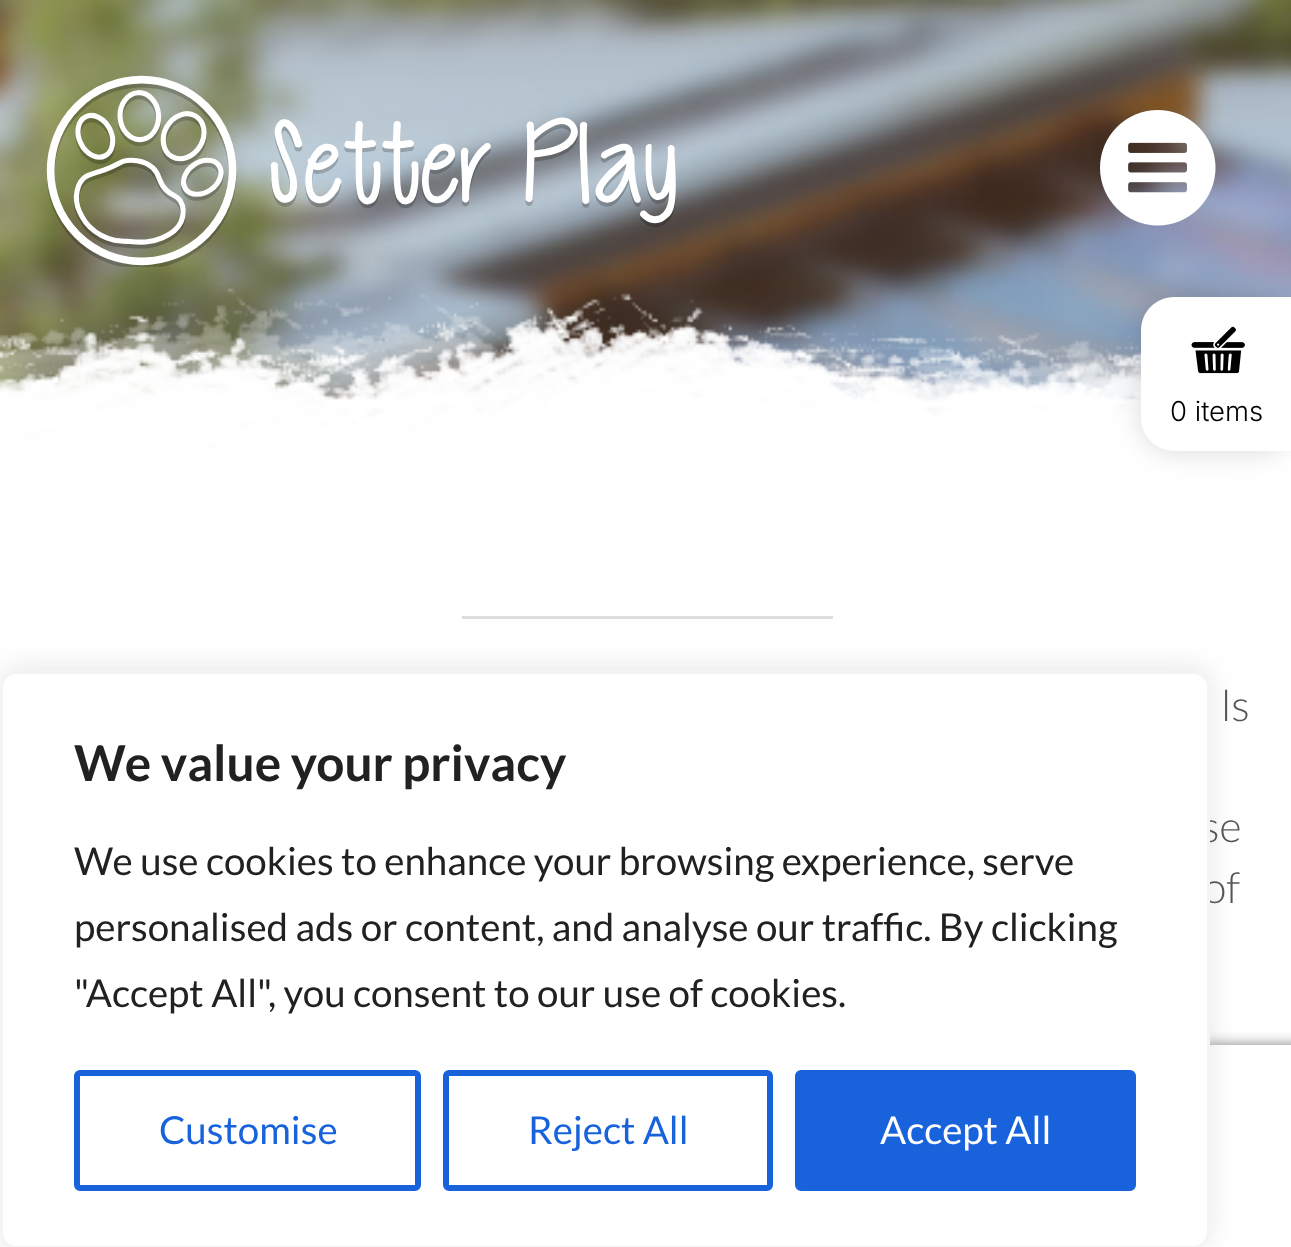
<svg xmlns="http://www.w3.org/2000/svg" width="1291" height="1247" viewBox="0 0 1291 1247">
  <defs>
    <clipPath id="clip1"><rect x="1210" y="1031" width="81" height="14"/></clipPath>
  </defs>
  <rect width="100%" height="100%" fill="rgb(255,255,255)"/>
  <image x="0" y="0" width="1291" height="495" href="pic1.png"/>
  <image x="46" y="75" width="630" height="192" href="pic2.png"/>
  <image x="1100" y="110" width="116" height="116" href="pic3.png"/>
  <image x="0" y="284" width="1291" height="211" href="pic4.png"/>
  <rect x="1141" y="297" width="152" height="154" rx="33" fill="rgba(0,0,0,0.15)" filter="blur(14px)"/>
  <path d="M1174 297H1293V451H1174C1156 451 1141 436 1141 418V330C1141 312 1156 297 1174 297Z" fill="rgb(255,255,255)"/>
  <image x="1191" y="326" width="54" height="48" href="pic5.png"/>
  <text x="1170" y="421" font-family="Inter" font-size="27.5" font-weight="300" fill="rgb(0,0,0)">0 items</text>
  <image x="0" y="1183" width="1291" height="64" href="pic6.png"/>
  <g clip-path="url(#clip1)">
    <rect x="1100" y="1045" width="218" height="165" rx="6" fill="rgb(128,128,128)" filter="blur(7px)"/>
  </g>
  <image x="0" y="1177" width="1291" height="70" href="pic7.png"/>
  <rect x="0" y="668" width="1210" height="578" rx="17" fill="rgba(172,171,171,0.3)" filter="blur(14px)"/>
  <g font-family="Lato" font-size="43" font-weight="300" fill="rgb(85,85,85)">
    <text x="1201" y="842">se</text>
    <text x="1203" y="903">of</text>
  </g>
  <rect x="1.5" y="672.5" width="1207" height="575" rx="15.5" fill="rgb(255,255,255)" stroke="rgb(244,244,244)" stroke-width="3"/>
  <text x="74" y="781" font-family="Lato" font-size="49.5" font-weight="bold" fill="rgb(33,33,33)">We value your privacy</text>
  <g font-family="Lato" font-size="38.5" fill="rgb(33,33,33)">
    <text>
      <tspan x="74" y="875">We use cookies to enhance your browsing experience, serve</tspan>
      <tspan x="74" y="941">personalised ads or content, and analyse our traffic. By clicking</tspan>
      <tspan x="74" y="1007">"Accept All", you consent to our use of cookies.</tspan>
    </text>
  </g>
  <rect x="77" y="1073" width="341" height="115" rx="3" fill="none" stroke="rgb(24,99,220)" stroke-width="6"/>
  <text x="159" y="1144" font-family="Lato" font-size="38.5" fill="rgb(24,99,220)">Customise</text>
  <rect x="446" y="1073" width="324" height="115" rx="3" fill="none" stroke="rgb(24,99,220)" stroke-width="6"/>
  <text x="528" y="1144" font-family="Lato" font-size="38.5" fill="rgb(24,99,220)">Reject All</text>
  <rect x="798" y="1073" width="335" height="115" rx="3" fill="rgb(24,99,220)" stroke="rgb(24,99,220)" stroke-width="6"/>
  <text x="880" y="1144" font-family="Lato" font-size="38.5" fill="rgb(255,255,255)">Accept All</text>
  <rect x="462" y="616" width="371" height="3" fill="rgb(221,221,221)"/>
  <text x="1221" y="721" font-family="Lato" font-size="43" font-weight="300" fill="rgb(85,85,85)">ls</text>
</svg>
